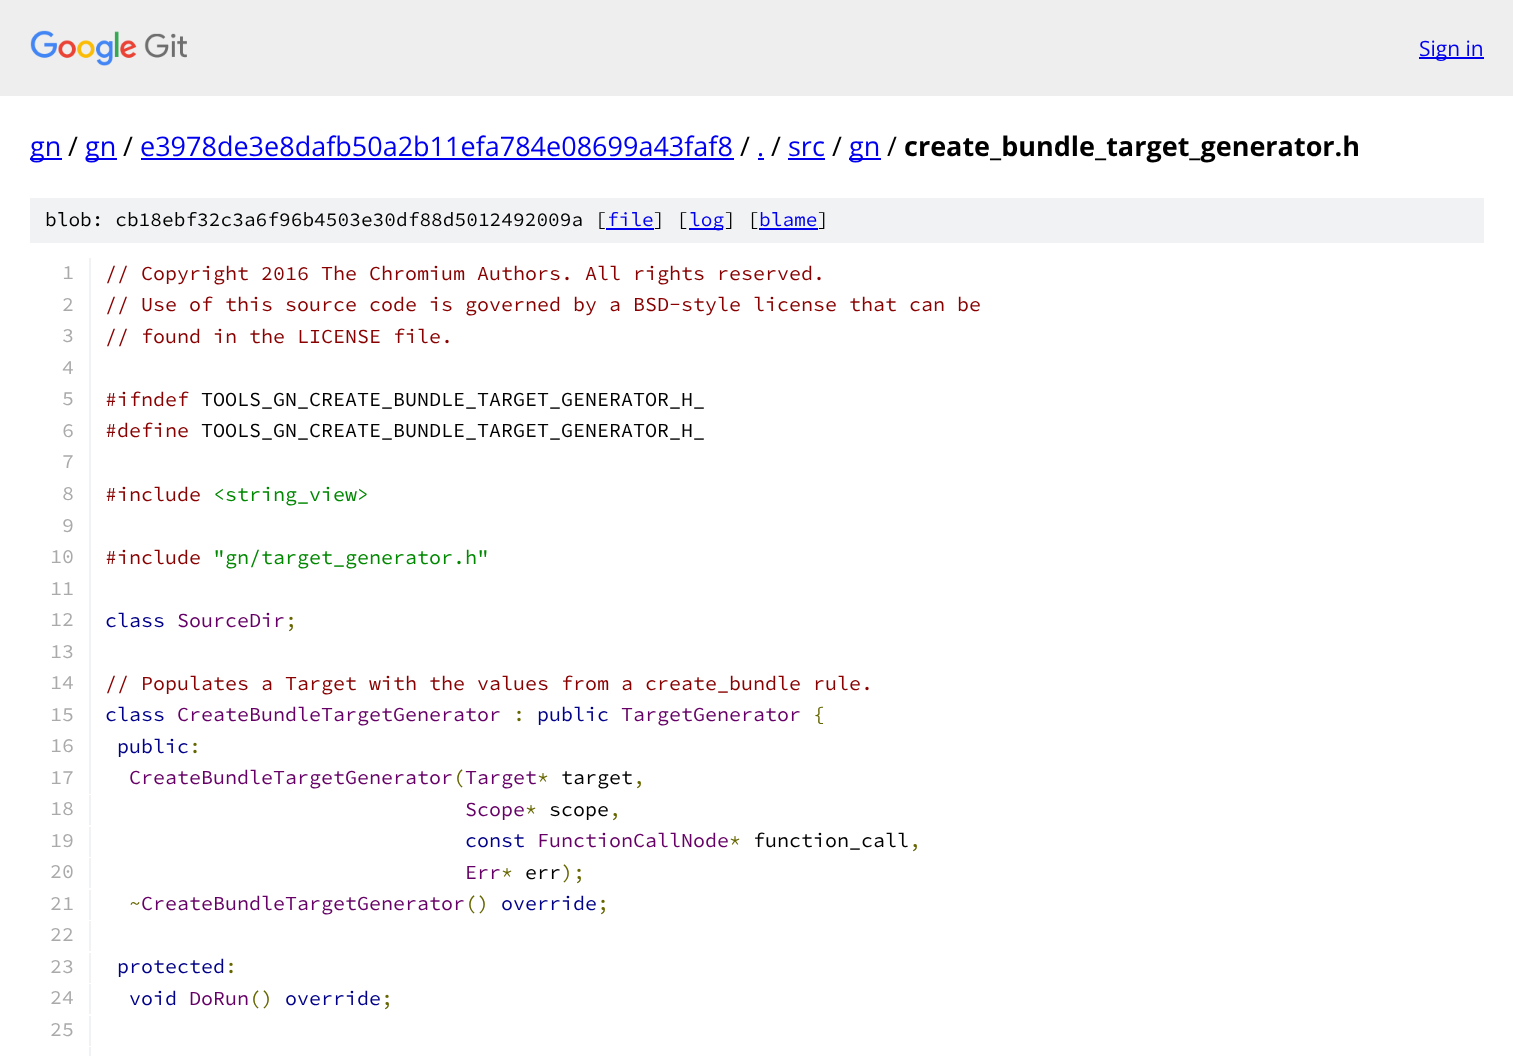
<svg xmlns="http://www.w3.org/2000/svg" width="1513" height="1056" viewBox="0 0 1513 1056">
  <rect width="100%" height="100%" fill="rgb(255,255,255)"/>
  <rect x="0" y="0" width="1513" height="96" fill="rgb(238,238,238)"/>
  <image x="30" y="30" width="157" height="36" href="pic1.png"/>
  <rect x="1419" y="57" width="65" height="2" fill="rgb(0,0,238)"/>
  <text x="1419" y="56" font-family="Open Sans" font-size="21" fill="rgb(0,0,238)">Sign in</text>
  <rect x="30" y="158" width="32" height="2" fill="rgb(0,0,238)"/>
  <text x="30" y="156" font-family="Open Sans" font-size="27" fill="rgb(0,0,238)">gn</text>
  <text x="68" y="156" font-family="Open Sans" font-size="27" fill="rgb(0,0,0)">/</text>
  <rect x="86" y="158" width="31" height="2" fill="rgb(0,0,238)"/>
  <text x="85" y="156" font-family="Open Sans" font-size="27" fill="rgb(0,0,238)">gn</text>
  <text x="123" y="156" font-family="Open Sans" font-size="27" fill="rgb(0,0,0)">/</text>
  <text x="140" y="156" font-family="Open Sans" font-size="27" fill="rgb(0,0,238)">e3978de3e8dafb50a2b11efa784e08699a43faf8</text>
  <rect x="141" y="158" width="593" height="2" fill="rgb(0,0,238)"/>
  <text x="740" y="156" font-family="Open Sans" font-size="27" fill="rgb(0,0,0)">/</text>
  <text x="757" y="156" font-family="Open Sans" font-size="27" fill="rgb(0,0,238)">.</text>
  <rect x="758" y="158" width="6" height="2" fill="rgb(0,0,238)"/>
  <text x="771" y="156" font-family="Open Sans" font-size="27" fill="rgb(0,0,0)">/</text>
  <text x="788" y="156" font-family="Open Sans" font-size="27" fill="rgb(0,0,238)">src</text>
  <rect x="788" y="158" width="37" height="2" fill="rgb(0,0,238)"/>
  <text x="832" y="156" font-family="Open Sans" font-size="27" fill="rgb(0,0,0)">/</text>
  <rect x="849" y="158" width="32" height="2" fill="rgb(0,0,238)"/>
  <text x="849" y="156" font-family="Open Sans" font-size="27" fill="rgb(0,0,238)">gn</text>
  <text x="887" y="156" font-family="Open Sans" font-size="27" fill="rgb(0,0,0)">/</text>
  <text x="904" y="156" font-family="Open Sans" font-size="27" font-weight="bold" fill="rgb(0,0,0)">create_bundle_target_generator.h</text>
  <rect x="30" y="198" width="1454" height="45" fill="rgb(241,242,243)"/>
  <text x="45" y="226" font-family="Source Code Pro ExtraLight" font-size="19.5" font-weight="200" fill="rgb(0,0,0)">blob: cb18ebf32c3a6f96b4503e30df88d5012492009a [</text>
  <text x="607" y="226" font-family="Source Code Pro ExtraLight" font-size="19.5" font-weight="200" fill="rgb(0,0,238)">file</text>
  <rect x="606" y="228" width="48" height="2" fill="rgb(0,0,238)"/>
  <text x="653" y="226" font-family="Source Code Pro ExtraLight" font-size="19.5" font-weight="200" fill="rgb(0,0,0)">] [</text>
  <rect x="689" y="228" width="34" height="2" fill="rgb(0,0,238)"/>
  <text x="689" y="226" font-family="Source Code Pro ExtraLight" font-size="19.5" font-weight="200" fill="rgb(0,0,238)">log</text>
  <text x="724" y="226" font-family="Source Code Pro ExtraLight" font-size="19.5" font-weight="200" fill="rgb(0,0,0)">] [</text>
  <text x="759" y="226" font-family="Source Code Pro ExtraLight" font-size="19.5" font-weight="200" fill="rgb(0,0,238)">blame</text>
  <rect x="759" y="228" width="59" height="2" fill="rgb(0,0,238)"/>
  <text x="817" y="226" font-family="Source Code Pro ExtraLight" font-size="19.5" font-weight="200" fill="rgb(0,0,0)">]</text>
  <rect x="89" y="258" width="2" height="536" fill="rgb(241,242,243)"/>
  <text x="62" y="279" font-family="Source Code Pro ExtraLight" font-size="20" font-weight="200" fill="rgb(170,170,170)">1</text>
  <text x="105" y="280" font-family="Source Code Pro ExtraLight" font-size="20" font-weight="200" fill="rgb(136,0,0)">// Copyright 2016 The Chromium Authors. All rights reserved.</text>
  <text x="62" y="311" font-family="Source Code Pro ExtraLight" font-size="20" font-weight="200" fill="rgb(170,170,170)">2</text>
  <text x="105" y="311" font-family="Source Code Pro ExtraLight" font-size="20" font-weight="200" fill="rgb(136,0,0)">// Use of this source code is governed by a BSD-style license that can be</text>
  <text x="62" y="342" font-family="Source Code Pro ExtraLight" font-size="20" font-weight="200" fill="rgb(170,170,170)">3</text>
  <text x="105" y="343" font-family="Source Code Pro ExtraLight" font-size="20" font-weight="200" fill="rgb(136,0,0)">// found in the LICENSE file.</text>
  <g font-family="Source Code Pro ExtraLight" font-size="20" font-weight="200" fill="rgb(170,170,170)">
    <text>
      <tspan x="62" y="374">4</tspan>
      <tspan x="62" y="405">5</tspan>
    </text>
  </g>
  <text x="105" y="406" font-family="Source Code Pro ExtraLight" font-size="20" font-weight="200" fill="rgb(136,0,0)">#ifndef</text>
  <text x="201" y="406" font-family="Source Code Pro ExtraLight" font-size="20" font-weight="200" fill="rgb(0,0,0)">TOOLS_GN_CREATE_BUNDLE_TARGET_GENERATOR_H_</text>
  <text x="62" y="437" font-family="Source Code Pro ExtraLight" font-size="20" font-weight="200" fill="rgb(170,170,170)">6</text>
  <text x="105" y="437" font-family="Source Code Pro ExtraLight" font-size="20" font-weight="200" fill="rgb(136,0,0)">#define</text>
  <text x="201" y="437" font-family="Source Code Pro ExtraLight" font-size="20" font-weight="200" fill="rgb(0,0,0)">TOOLS_GN_CREATE_BUNDLE_TARGET_GENERATOR_H_</text>
  <g font-family="Source Code Pro ExtraLight" font-size="20" font-weight="200" fill="rgb(170,170,170)">
    <text>
      <tspan x="62" y="468">7</tspan>
      <tspan x="62" y="500">8</tspan>
    </text>
  </g>
  <text x="105" y="501" font-family="Source Code Pro ExtraLight" font-size="20" font-weight="200" fill="rgb(136,0,0)">#include</text>
  <text x="213" y="501" font-family="Source Code Pro ExtraLight" font-size="20" font-weight="200" fill="rgb(0,136,0)">&lt;string_view&gt;</text>
  <g font-family="Source Code Pro ExtraLight" font-size="20" font-weight="200" fill="rgb(170,170,170)">
    <text x="62" y="532">9</text>
    <text x="50" y="563">10</text>
  </g>
  <text x="105" y="564" font-family="Source Code Pro ExtraLight" font-size="20" font-weight="200" fill="rgb(136,0,0)">#include</text>
  <text x="213" y="564" font-family="Source Code Pro ExtraLight" font-size="20" font-weight="200" fill="rgb(0,136,0)">"gn/target_generator.h"</text>
  <g font-family="Source Code Pro ExtraLight" font-size="20" font-weight="200" fill="rgb(170,170,170)">
    <text>
      <tspan x="50" y="595">11</tspan>
      <tspan x="50" y="626">12</tspan>
    </text>
  </g>
  <text x="105" y="627" font-family="Source Code Pro ExtraLight" font-size="20" font-weight="200" fill="rgb(0,0,136)">class</text>
  <text x="177" y="627" font-family="Source Code Pro ExtraLight" font-size="20" font-weight="200" fill="rgb(102,0,102)">SourceDir</text>
  <text x="285" y="627" font-family="Source Code Pro ExtraLight" font-size="20" font-weight="200" fill="rgb(102,102,0)">;</text>
  <g font-family="Source Code Pro ExtraLight" font-size="20" font-weight="200" fill="rgb(170,170,170)">
    <text>
      <tspan x="50" y="658">13</tspan>
      <tspan x="50" y="689">14</tspan>
    </text>
  </g>
  <text x="105" y="690" font-family="Source Code Pro ExtraLight" font-size="20" font-weight="200" fill="rgb(136,0,0)">// Populates a Target with the values from a create_bundle rule.</text>
  <text x="50" y="721" font-family="Source Code Pro ExtraLight" font-size="20" font-weight="200" fill="rgb(170,170,170)">15</text>
  <text x="105" y="721" font-family="Source Code Pro ExtraLight" font-size="20" font-weight="200" fill="rgb(0,0,136)">class</text>
  <text x="177" y="721" font-family="Source Code Pro ExtraLight" font-size="20" font-weight="200" fill="rgb(102,0,102)">CreateBundleTargetGenerator</text>
  <text x="513" y="721" font-family="Source Code Pro ExtraLight" font-size="20" font-weight="200" fill="rgb(102,102,0)">:</text>
  <text x="537" y="721" font-family="Source Code Pro ExtraLight" font-size="20" font-weight="200" fill="rgb(0,0,136)">public</text>
  <text x="621" y="721" font-family="Source Code Pro ExtraLight" font-size="20" font-weight="200" fill="rgb(102,0,102)">TargetGenerator</text>
  <text x="813" y="721" font-family="Source Code Pro ExtraLight" font-size="20" font-weight="200" fill="rgb(102,102,0)">{</text>
  <text x="50" y="752" font-family="Source Code Pro ExtraLight" font-size="20" font-weight="200" fill="rgb(170,170,170)">16</text>
  <text x="117" y="753" font-family="Source Code Pro ExtraLight" font-size="20" font-weight="200" fill="rgb(0,0,136)">public</text>
  <text x="189" y="753" font-family="Source Code Pro ExtraLight" font-size="20" font-weight="200" fill="rgb(102,102,0)">:</text>
  <text x="50" y="784" font-family="Source Code Pro ExtraLight" font-size="20" font-weight="200" fill="rgb(170,170,170)">17</text>
  <text x="129" y="784" font-family="Source Code Pro ExtraLight" font-size="20" font-weight="200" fill="rgb(102,0,102)">CreateBundleTargetGenerator Target</text>
  <g font-family="Source Code Pro ExtraLight" font-size="20" font-weight="200" fill="rgb(102,102,0)">
    <text x="453" y="784">(</text>
    <text x="537" y="784">*</text>
  </g>
  <text x="561" y="784" font-family="Source Code Pro ExtraLight" font-size="20" font-weight="200" fill="rgb(0,0,0)">target</text>
  <text x="633" y="784" font-family="Source Code Pro ExtraLight" font-size="20" font-weight="200" fill="rgb(102,102,0)">,</text>
  <rect x="89" y="795" width="2" height="30" fill="rgb(241,242,243)"/>
  <text x="50" y="815" font-family="Source Code Pro ExtraLight" font-size="20" font-weight="200" fill="rgb(170,170,170)">18</text>
  <text x="465" y="816" font-family="Source Code Pro ExtraLight" font-size="20" font-weight="200" fill="rgb(102,0,102)">Scope</text>
  <text x="525" y="816" font-family="Source Code Pro ExtraLight" font-size="20" font-weight="200" fill="rgb(102,102,0)">*</text>
  <text x="549" y="816" font-family="Source Code Pro ExtraLight" font-size="20" font-weight="200" fill="rgb(0,0,0)">scope</text>
  <text x="609" y="816" font-family="Source Code Pro ExtraLight" font-size="20" font-weight="200" fill="rgb(102,102,0)">,</text>
  <rect x="89" y="827" width="2" height="30" fill="rgb(241,242,243)"/>
  <text x="50" y="847" font-family="Source Code Pro ExtraLight" font-size="20" font-weight="200" fill="rgb(170,170,170)">19</text>
  <text x="465" y="847" font-family="Source Code Pro ExtraLight" font-size="20" font-weight="200" fill="rgb(0,0,136)">const</text>
  <text x="537" y="847" font-family="Source Code Pro ExtraLight" font-size="20" font-weight="200" fill="rgb(102,0,102)">FunctionCallNode</text>
  <text x="729" y="847" font-family="Source Code Pro ExtraLight" font-size="20" font-weight="200" fill="rgb(102,102,0)">*</text>
  <text x="753" y="847" font-family="Source Code Pro ExtraLight" font-size="20" font-weight="200" fill="rgb(0,0,0)">function_call</text>
  <text x="909" y="847" font-family="Source Code Pro ExtraLight" font-size="20" font-weight="200" fill="rgb(102,102,0)">,</text>
  <rect x="89" y="858" width="2" height="30" fill="rgb(241,242,243)"/>
  <text x="50" y="878" font-family="Source Code Pro ExtraLight" font-size="20" font-weight="200" fill="rgb(170,170,170)">20</text>
  <text x="465" y="879" font-family="Source Code Pro ExtraLight" font-size="20" font-weight="200" fill="rgb(102,0,102)">Err</text>
  <text x="501" y="879" font-family="Source Code Pro ExtraLight" font-size="20" font-weight="200" fill="rgb(102,102,0)">*</text>
  <text x="525" y="879" font-family="Source Code Pro ExtraLight" font-size="20" font-weight="200" fill="rgb(0,0,0)">err</text>
  <text x="561" y="879" font-family="Source Code Pro ExtraLight" font-size="20" font-weight="200" fill="rgb(102,102,0)">);</text>
  <rect x="89" y="890" width="2" height="30" fill="rgb(241,242,243)"/>
  <text x="50" y="910" font-family="Source Code Pro ExtraLight" font-size="20" font-weight="200" fill="rgb(170,170,170)">21</text>
  <text x="129" y="910" font-family="Source Code Pro ExtraLight" font-size="20" font-weight="200" fill="rgb(102,102,0)">~</text>
  <text x="141" y="910" font-family="Source Code Pro ExtraLight" font-size="20" font-weight="200" fill="rgb(102,0,102)">CreateBundleTargetGenerator</text>
  <text x="465" y="910" font-family="Source Code Pro ExtraLight" font-size="20" font-weight="200" fill="rgb(102,102,0)">()</text>
  <text x="501" y="910" font-family="Source Code Pro ExtraLight" font-size="20" font-weight="200" fill="rgb(0,0,136)">override</text>
  <text x="597" y="910" font-family="Source Code Pro ExtraLight" font-size="20" font-weight="200" fill="rgb(102,102,0)">;</text>
  <rect x="89" y="921" width="2" height="30" fill="rgb(241,242,243)"/>
  <text x="50" y="941" font-family="Source Code Pro ExtraLight" font-size="20" font-weight="200" fill="rgb(170,170,170)">22</text>
  <rect x="89" y="953" width="2" height="30" fill="rgb(241,242,243)"/>
  <text x="50" y="973" font-family="Source Code Pro ExtraLight" font-size="20" font-weight="200" fill="rgb(170,170,170)">23</text>
  <text x="117" y="973" font-family="Source Code Pro ExtraLight" font-size="20" font-weight="200" fill="rgb(0,0,136)">protected</text>
  <text x="225" y="973" font-family="Source Code Pro ExtraLight" font-size="20" font-weight="200" fill="rgb(102,102,0)">:</text>
  <rect x="89" y="984" width="2" height="30" fill="rgb(241,242,243)"/>
  <text x="50" y="1004" font-family="Source Code Pro ExtraLight" font-size="20" font-weight="200" fill="rgb(170,170,170)">24</text>
  <text x="129" y="1005" font-family="Source Code Pro ExtraLight" font-size="20" font-weight="200" fill="rgb(0,0,136)">void</text>
  <text x="189" y="1005" font-family="Source Code Pro ExtraLight" font-size="20" font-weight="200" fill="rgb(102,0,102)">DoRun</text>
  <text x="249" y="1005" font-family="Source Code Pro ExtraLight" font-size="20" font-weight="200" fill="rgb(102,102,0)">()</text>
  <text x="285" y="1005" font-family="Source Code Pro ExtraLight" font-size="20" font-weight="200" fill="rgb(0,0,136)">override</text>
  <text x="381" y="1005" font-family="Source Code Pro ExtraLight" font-size="20" font-weight="200" fill="rgb(102,102,0)">;</text>
  <rect x="89" y="1016" width="2" height="30" fill="rgb(241,242,243)"/>
  <text x="50" y="1036" font-family="Source Code Pro ExtraLight" font-size="20" font-weight="200" fill="rgb(170,170,170)">25</text>
  <rect x="89" y="1047" width="2" height="9" fill="rgb(241,242,243)"/>
</svg>
